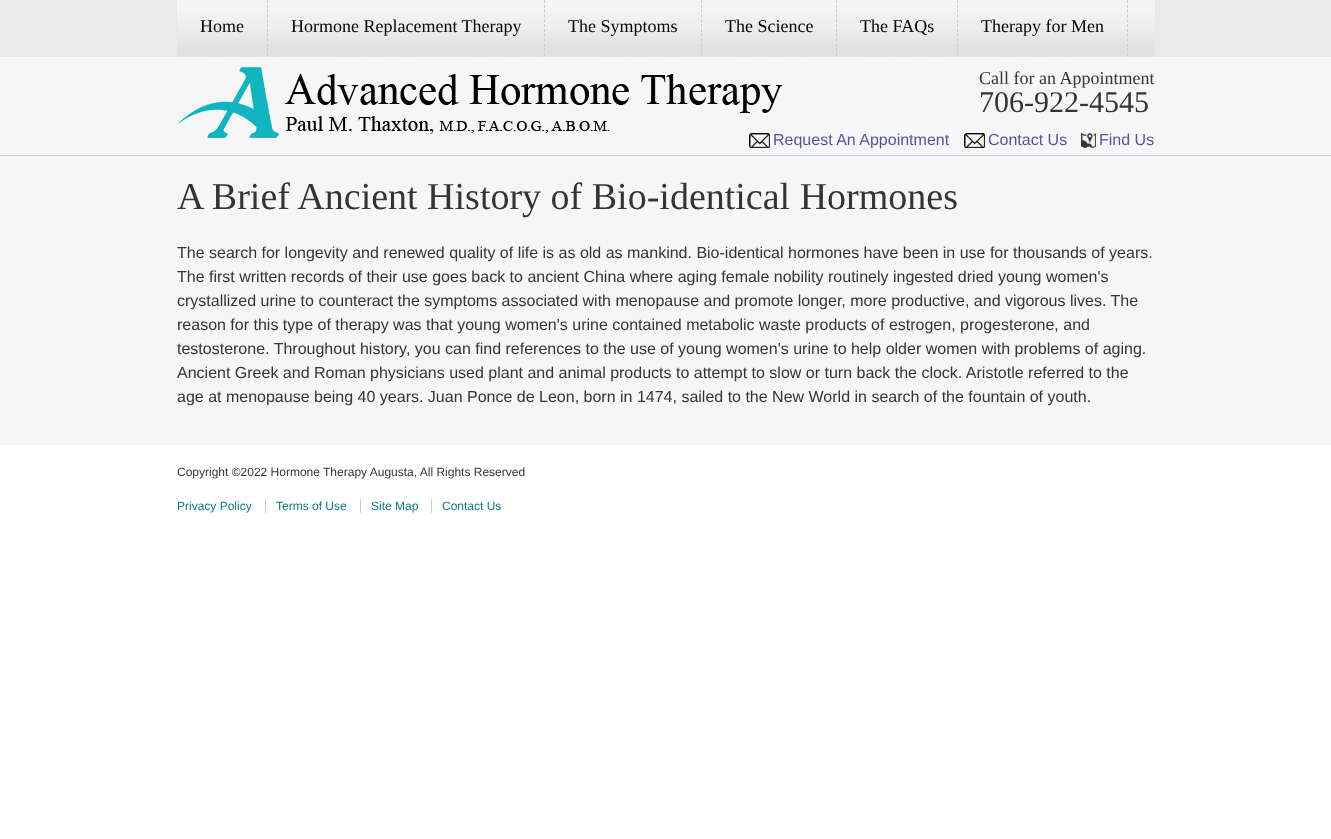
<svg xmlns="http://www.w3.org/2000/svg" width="1331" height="839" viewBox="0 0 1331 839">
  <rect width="100%" height="100%" fill="rgb(255,255,255)"/>
  <rect x="0" y="57" width="1331" height="388" fill="rgb(246,246,246)"/>
  <rect x="0" y="0" width="1331" height="57" fill="rgb(233,233,233)"/>
  <image x="177" y="0" width="978" height="57" href="pic1.png"/>
  <path d="M267.5 0V56" fill="none" stroke="rgb(204,204,204)" stroke-dasharray="3 1.82"/>
  <text x="200" y="32" font-family="Liberation Serif" font-size="18" fill="rgb(0,0,0)">Home</text>
  <path d="M544.5 0V56" fill="none" stroke="rgb(204,204,204)" stroke-dasharray="3 1.82"/>
  <text x="291" y="32" font-family="Liberation Serif" font-size="18" fill="rgb(0,0,0)">Hormone Replacement Therapy</text>
  <path d="M701.5 0V56" fill="none" stroke="rgb(204,204,204)" stroke-dasharray="3 1.82"/>
  <text x="568" y="32" font-family="Liberation Serif" font-size="18" fill="rgb(0,0,0)">The Symptoms</text>
  <path d="M836.5 0V56" fill="none" stroke="rgb(204,204,204)" stroke-dasharray="3 1.82"/>
  <text x="725" y="32" font-family="Liberation Serif" font-size="18" fill="rgb(0,0,0)">The Science</text>
  <path d="M957.5 0V56" fill="none" stroke="rgb(204,204,204)" stroke-dasharray="3 1.82"/>
  <text x="860" y="32" font-family="Liberation Serif" font-size="18" fill="rgb(0,0,0)">The FAQs</text>
  <path d="M1127.5 0V56" fill="none" stroke="rgb(204,204,204)" stroke-dasharray="3 1.82"/>
  <text x="981" y="32" font-family="Liberation Serif" font-size="18" fill="rgb(0,0,0)">Therapy for Men</text>
  <rect x="0" y="155" width="1331" height="1" fill="rgb(183,216,218)"/>
  <image x="177" y="67" width="606" height="71" href="pic2.png"/>
  <text x="979" y="84" font-family="Liberation Serif" font-size="18" fill="rgb(52,52,52)">Call for an Appointment</text>
  <text x="979" y="112" font-family="Liberation Serif" font-size="30" fill="rgb(52,52,52)">706-922-4545</text>
  <image x="749" y="133" width="21" height="15" href="pic3.png"/>
  <text x="773" y="145" font-family="Liberation Sans" font-size="16" fill="rgb(82,86,160)">Request An Appointment</text>
  <image x="964" y="133" width="21" height="15" href="pic4.png"/>
  <text x="988" y="145" font-family="Liberation Sans" font-size="16" fill="rgb(82,86,160)">Contact Us</text>
  <image x="1081" y="133" width="15" height="15" href="pic5.png"/>
  <text x="1099" y="145" font-family="Liberation Sans" font-size="16" fill="rgb(82,86,160)">Find Us</text>
  <text x="177" y="209" font-family="Liberation Serif" font-size="38" fill="rgb(52,52,52)">A Brief Ancient History of Bio-identical Hormones</text>
  <g font-family="Liberation Sans" font-size="16" fill="rgb(52,52,52)">
    <text>
      <tspan x="177" y="258">The search for longevity and renewed quality of life is as old as mankind. Bio-identical hormones have been in use for thousands of years.</tspan>
      <tspan x="177" y="282">The first written records of their use goes back to ancient China where aging female nobility routinely ingested dried young women's</tspan>
      <tspan x="177" y="306">crystallized urine to counteract the symptoms associated with menopause and promote longer, more productive, and vigorous lives. The</tspan>
      <tspan x="177" y="330">reason for this type of therapy was that young women's urine contained metabolic waste products of estrogen, progesterone, and</tspan>
      <tspan x="177" y="354">testosterone. Throughout history, you can find references to the use of young women's urine to help older women with problems of aging.</tspan>
      <tspan x="177" y="378">Ancient Greek and Roman physicians used plant and animal products to attempt to slow or turn back the clock. Aristotle referred to the</tspan>
      <tspan x="177" y="402">age at menopause being 40 years. Juan Ponce de Leon, born in 1474, sailed to the New World in search of the fountain of youth.</tspan>
    </text>
  </g>
  <text x="177" y="476" font-family="Liberation Sans" font-size="12" fill="rgb(52,52,52)">Copyright ©2022 Hormone Therapy Augusta, All Rights Reserved</text>
  <g font-family="Liberation Sans" font-size="12" fill="rgb(11,122,130)">
    <text x="177" y="510">Privacy Policy</text>
    <text x="276" y="510">Terms of Use</text>
  </g>
  <rect x="265" y="499" width="1" height="14" fill="rgb(204,204,204)"/>
  <text x="371" y="510" font-family="Liberation Sans" font-size="12" fill="rgb(11,122,130)">Site Map</text>
  <rect x="360" y="499" width="1" height="14" fill="rgb(204,204,204)"/>
  <text x="442" y="510" font-family="Liberation Sans" font-size="12" fill="rgb(11,122,130)">Contact Us</text>
  <rect x="431" y="499" width="1" height="14" fill="rgb(204,204,204)"/>
</svg>
